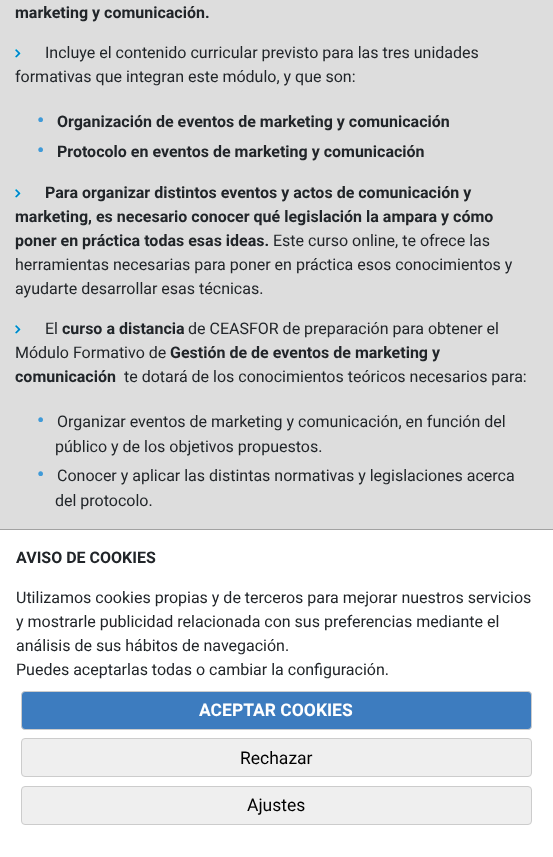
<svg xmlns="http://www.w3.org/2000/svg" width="553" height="857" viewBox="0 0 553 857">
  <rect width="100%" height="100%" fill="rgb(221,221,221)"/>
  <text x="15" y="18" font-family="Roboto" font-size="16" font-weight="bold" fill="rgb(33,37,41)">marketing y comunicación.</text>
  <image x="15" y="49" width="6" height="9" href="pic1.png"/>
  <g font-family="Roboto" font-size="16" fill="rgb(33,37,41)">
    <text x="45" y="58">Incluye el contenido curricular previsto para las tres unidades</text>
    <text x="15" y="82">formativas que integran este módulo, y que son:</text>
  </g>
  <text x="37" y="127" font-family="Roboto" font-size="20" font-weight="bold" fill="rgb(63,154,216)">•</text>
  <text x="57" y="127" font-family="Roboto" font-size="16" font-weight="bold" fill="rgb(33,37,41)">Organización de eventos de marketing y comunicación</text>
  <text x="37" y="157" font-family="Roboto" font-size="20" font-weight="bold" fill="rgb(63,154,216)">•</text>
  <text x="57" y="157" font-family="Roboto" font-size="16" font-weight="bold" fill="rgb(33,37,41)">Protocolo en eventos de marketing y comunicación</text>
  <image x="15" y="189" width="6" height="9" href="pic1.png"/>
  <g font-family="Roboto" font-size="16" font-weight="bold" fill="rgb(33,37,41)">
    <text x="45" y="198">Para organizar distintos eventos y actos de comunicación y</text>
    <text>
      <tspan x="15" y="222">marketing, es necesario conocer qué legislación la ampara y cómo</tspan>
      <tspan x="15" y="246">poner en práctica todas esas ideas.</tspan>
    </text>
  </g>
  <g font-family="Roboto" font-size="16" fill="rgb(33,37,41)">
    <text x="273" y="246">Este curso online, te ofrece las</text>
    <text>
      <tspan x="15" y="270">herramientas necesarias para poner en práctica esos conocimientos y</tspan>
      <tspan x="15" y="294">ayudarte desarrollar esas técnicas.</tspan>
    </text>
  </g>
  <image x="15" y="325" width="6" height="9" href="pic1.png"/>
  <text x="45" y="334" font-family="Roboto" font-size="16" fill="rgb(33,37,41)">El</text>
  <text x="62" y="334" font-family="Roboto" font-size="16" font-weight="bold" fill="rgb(33,37,41)">curso a distancia</text>
  <g font-family="Roboto" font-size="16" fill="rgb(33,37,41)">
    <text x="188" y="334">de CEASFOR de preparación para obtener el</text>
    <text x="15" y="358">Módulo Formativo de</text>
  </g>
  <g font-family="Roboto" font-size="16" font-weight="bold" fill="rgb(33,37,41)">
    <text x="170" y="358">Gestión de de eventos de marketing y</text>
    <text x="15" y="382">comunicación</text>
  </g>
  <text x="124" y="382" font-family="Roboto" font-size="16" fill="rgb(33,37,41)">te dotará de los conocimientos teóricos necesarios para:</text>
  <text x="37" y="427" font-family="Roboto" font-size="20" font-weight="bold" fill="rgb(63,154,216)">•</text>
  <g font-family="Roboto" font-size="16" fill="rgb(33,37,41)">
    <text x="57" y="427">Organizar eventos de marketing y comunicación, en función del</text>
    <text x="55" y="452">público y de los objetivos propuestos.</text>
  </g>
  <text x="37" y="481" font-family="Roboto" font-size="20" font-weight="bold" fill="rgb(63,154,216)">•</text>
  <g font-family="Roboto" font-size="16" fill="rgb(33,37,41)">
    <text x="57" y="481">Conocer y aplicar las distintas normativas y legislaciones acerca</text>
    <text x="55" y="506">del protocolo.</text>
  </g>
  <rect x="0" y="530" width="553" height="327" fill="rgb(255,255,255)"/>
  <rect x="0" y="529" width="553" height="1" fill="rgb(162,162,162)"/>
  <text x="16" y="563" font-family="Roboto" font-size="16" font-weight="bold" fill="rgb(33,37,41)">AVISO DE COOKIES</text>
  <g font-family="Roboto" font-size="16" fill="rgb(33,37,41)">
    <text>
      <tspan x="16" y="603">Utilizamos cookies propias y de terceros para mejorar nuestros servicios</tspan>
      <tspan x="16" y="627">y mostrarle publicidad relacionada con sus preferencias mediante el</tspan>
      <tspan x="16" y="651">análisis de sus hábitos de navegación.</tspan>
      <tspan x="16" y="675">Puedes aceptarlas todas o cambiar la configuración.</tspan>
    </text>
  </g>
  <rect x="21.5" y="691.5" width="510" height="38" rx="3.5" fill="rgb(61,124,191)" stroke="rgb(204,204,204)"/>
  <text x="199" y="716" font-family="Roboto" font-size="17.5" font-weight="bold" fill="rgb(255,255,255)">ACEPTAR COOKIES</text>
  <rect x="21.5" y="738.5" width="510" height="38" rx="3.5" fill="rgb(239,239,239)" stroke="rgb(204,204,204)"/>
  <text x="240" y="764" font-family="Roboto" font-size="17.5" fill="rgb(0,0,0)">Rechazar</text>
  <rect x="21.5" y="786.5" width="510" height="38" rx="3.5" fill="rgb(239,239,239)" stroke="rgb(204,204,204)"/>
  <text x="247" y="811" font-family="Roboto" font-size="17.5" fill="rgb(0,0,0)">Ajustes</text>
</svg>
